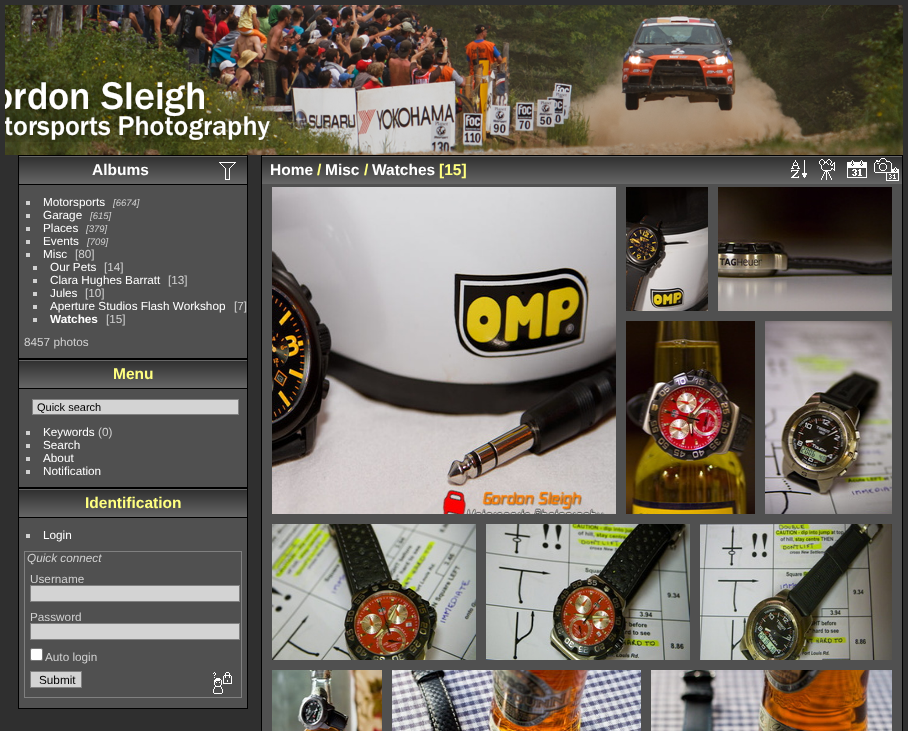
<svg xmlns="http://www.w3.org/2000/svg" width="908" height="731" viewBox="0 0 908 731">
  <rect width="100%" height="100%" fill="rgb(47,47,47)"/>
  <image x="5" y="5" width="898" height="150" href="pic1.png"/>
  <rect x="19" y="185" width="228" height="173" fill="rgb(80,80,80)"/>
  <rect x="18.5" y="155.5" width="229" height="203" fill="none" stroke="rgb(0,0,0)"/>
  <image x="19" y="156" width="228" height="28" href="pic2.png"/>
  <rect x="19" y="184" width="228" height="1" fill="rgb(0,0,0)"/>
  <text x="92" y="175" font-family="Liberation Sans" font-size="15.5" font-weight="bold" fill="rgb(255,255,255)">Albums</text>
  <image x="219" y="162" width="17" height="18" href="pic3.png"/>
  <rect x="26" y="201" width="4" height="4" fill="rgb(208,208,208)"/>
  <text x="43" y="206" font-family="Liberation Sans" font-size="11.75" fill="rgb(255,255,255)">Motorsports</text>
  <text x="113" y="206" font-family="Liberation Sans" font-size="9.5" font-style="italic" fill="rgb(208,208,208)">[6674]</text>
  <rect x="26" y="214" width="4" height="4" fill="rgb(208,208,208)"/>
  <text x="43" y="219" font-family="Liberation Sans" font-size="11.75" fill="rgb(255,255,255)">Garage</text>
  <text x="90" y="219" font-family="Liberation Sans" font-size="9.5" font-style="italic" fill="rgb(208,208,208)">[615]</text>
  <rect x="26" y="227" width="4" height="4" fill="rgb(208,208,208)"/>
  <text x="43" y="232" font-family="Liberation Sans" font-size="11.75" fill="rgb(255,255,255)">Places</text>
  <text x="86" y="232" font-family="Liberation Sans" font-size="9.5" font-style="italic" fill="rgb(208,208,208)">[379]</text>
  <rect x="26" y="240" width="4" height="4" fill="rgb(208,208,208)"/>
  <text x="43" y="245" font-family="Liberation Sans" font-size="11.75" fill="rgb(255,255,255)">Events</text>
  <text x="87" y="245" font-family="Liberation Sans" font-size="9.5" font-style="italic" fill="rgb(208,208,208)">[709]</text>
  <rect x="26" y="253" width="4" height="4" fill="rgb(208,208,208)"/>
  <text x="43" y="258" font-family="Liberation Sans" font-size="11.75" fill="rgb(255,255,255)">Misc</text>
  <text x="75" y="258" font-family="Liberation Sans" font-size="11.75" fill="rgb(208,208,208)">[80]</text>
  <rect x="33" y="266" width="4" height="4" fill="rgb(208,208,208)"/>
  <text x="50" y="271" font-family="Liberation Sans" font-size="11.75" fill="rgb(255,255,255)">Our Pets</text>
  <text x="104" y="271" font-family="Liberation Sans" font-size="11.75" fill="rgb(208,208,208)">[14]</text>
  <rect x="33" y="279" width="4" height="4" fill="rgb(208,208,208)"/>
  <text x="50" y="284" font-family="Liberation Sans" font-size="11.75" fill="rgb(255,255,255)">Clara Hughes Barratt</text>
  <text x="168" y="284" font-family="Liberation Sans" font-size="11.75" fill="rgb(208,208,208)">[13]</text>
  <rect x="33" y="292" width="4" height="4" fill="rgb(208,208,208)"/>
  <text x="50" y="297" font-family="Liberation Sans" font-size="11.75" fill="rgb(255,255,255)">Jules</text>
  <text x="85" y="297" font-family="Liberation Sans" font-size="11.75" fill="rgb(208,208,208)">[10]</text>
  <rect x="33" y="305" width="4" height="4" fill="rgb(208,208,208)"/>
  <text x="50" y="310" font-family="Liberation Sans" font-size="11.75" fill="rgb(255,255,255)">Aperture Studios Flash Workshop</text>
  <text x="234" y="310" font-family="Liberation Sans" font-size="11.75" fill="rgb(208,208,208)">[7]</text>
  <rect x="33" y="318" width="4" height="4" fill="rgb(208,208,208)"/>
  <text x="50" y="323" font-family="Liberation Sans" font-size="11.75" font-weight="bold" fill="rgb(255,255,255)">Watches</text>
  <g font-family="Liberation Sans" font-size="11.75" fill="rgb(208,208,208)">
    <text x="106" y="323">[15]</text>
    <text x="24" y="346">8457 photos</text>
  </g>
  <rect x="19" y="389" width="228" height="98" fill="rgb(80,80,80)"/>
  <rect x="18.5" y="359.5" width="229" height="128" fill="none" stroke="rgb(0,0,0)"/>
  <image x="19" y="360" width="228" height="28" href="pic2.png"/>
  <rect x="19" y="388" width="228" height="1" fill="rgb(0,0,0)"/>
  <text x="113" y="379" font-family="Liberation Sans" font-size="15.5" font-weight="bold" fill="rgb(255,255,128)">Menu</text>
  <rect x="32.5" y="399.5" width="206" height="15" fill="rgb(211,211,211)" stroke="rgb(128,128,128)"/>
  <text x="37" y="411" font-family="Liberation Sans" font-size="11" fill="rgb(0,0,0)">Quick search</text>
  <rect x="26" y="431" width="4" height="4" fill="rgb(208,208,208)"/>
  <text x="43" y="436" font-family="Liberation Sans" font-size="11.75" fill="rgb(255,255,255)">Keywords</text>
  <text x="98" y="436" font-family="Liberation Sans" font-size="11.75" fill="rgb(208,208,208)">(0)</text>
  <rect x="26" y="444" width="4" height="4" fill="rgb(208,208,208)"/>
  <text x="43" y="449" font-family="Liberation Sans" font-size="11.75" fill="rgb(255,255,255)">Search</text>
  <rect x="26" y="457" width="4" height="4" fill="rgb(208,208,208)"/>
  <text x="43" y="462" font-family="Liberation Sans" font-size="11.75" fill="rgb(255,255,255)">About</text>
  <rect x="26" y="470" width="4" height="4" fill="rgb(208,208,208)"/>
  <text x="43" y="475" font-family="Liberation Sans" font-size="11.75" fill="rgb(255,255,255)">Notification</text>
  <rect x="19" y="518" width="228" height="190" fill="rgb(80,80,80)"/>
  <rect x="18.5" y="488.5" width="229" height="220" fill="none" stroke="rgb(0,0,0)"/>
  <image x="19" y="489" width="228" height="28" href="pic2.png"/>
  <rect x="19" y="517" width="228" height="1" fill="rgb(0,0,0)"/>
  <text x="85" y="508" font-family="Liberation Sans" font-size="15.5" font-weight="bold" fill="rgb(255,255,128)">Identification</text>
  <rect x="26" y="534" width="4" height="4" fill="rgb(208,208,208)"/>
  <text x="43" y="539" font-family="Liberation Sans" font-size="11.75" fill="rgb(255,255,255)">Login</text>
  <rect x="24.5" y="551.5" width="217" height="146" fill="none" stroke="rgb(128,128,128)"/>
  <text x="27" y="562" font-family="Liberation Sans" font-size="11.75" font-style="italic" fill="rgb(208,208,208)">Quick connect</text>
  <text x="30" y="583" font-family="Liberation Sans" font-size="11.75" fill="rgb(208,208,208)">Username</text>
  <rect x="30.5" y="585.5" width="209" height="16" fill="rgb(211,211,211)" stroke="rgb(128,128,128)"/>
  <text x="30" y="621" font-family="Liberation Sans" font-size="11.75" fill="rgb(208,208,208)">Password</text>
  <rect x="30.5" y="623.5" width="209" height="16" fill="rgb(211,211,211)" stroke="rgb(128,128,128)"/>
  <rect x="30.5" y="648.5" width="12" height="12" rx="1.5" fill="rgb(255,255,255)" stroke="rgb(118,118,118)"/>
  <text x="45" y="661" font-family="Liberation Sans" font-size="11.75" fill="rgb(208,208,208)">Auto login</text>
  <rect x="30.5" y="671.5" width="51" height="16" fill="rgb(211,211,211)" stroke="rgb(128,128,128)"/>
  <text x="39" y="684" font-family="Liberation Sans" font-size="11.75" fill="rgb(0,0,0)">Submit</text>
  <image x="213" y="672" width="19" height="22" href="pic4.png"/>
  <rect x="262" y="184" width="640" height="547" fill="rgb(80,80,80)"/>
  <rect x="261.5" y="155.5" width="641" height="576" fill="none" stroke="rgb(0,0,0)"/>
  <image x="262" y="156" width="640" height="28" href="pic5.png"/>
  <text x="270" y="175" font-family="Liberation Sans" font-size="15.5" font-weight="bold" fill="rgb(255,255,255)">Home</text>
  <text x="317" y="175" font-family="Liberation Sans" font-size="15.5" font-weight="bold" fill="rgb(255,255,128)">/</text>
  <text x="325" y="175" font-family="Liberation Sans" font-size="15.5" font-weight="bold" fill="rgb(255,255,255)">Misc</text>
  <text x="364" y="175" font-family="Liberation Sans" font-size="15.5" font-weight="bold" fill="rgb(255,255,128)">/</text>
  <text x="372" y="175" font-family="Liberation Sans" font-size="15.5" font-weight="bold" fill="rgb(255,255,255)">Watches</text>
  <text x="439" y="175" font-family="Liberation Sans" font-size="15.5" font-weight="bold" fill="rgb(255,255,128)">[15]</text>
  <image x="791" y="160" width="16" height="18" href="pic6.png"/>
  <image x="819" y="159" width="16" height="21" href="pic7.png"/>
  <image x="847" y="160" width="20" height="18" href="pic8.png"/>
  <image x="874" y="158" width="25" height="23" href="pic9.png"/>
  <image x="272" y="187" width="344" height="327" href="pic10.png"/>
  <image x="626" y="187" width="82" height="124" href="pic11.png"/>
  <image x="718" y="187" width="174" height="124" href="pic12.png"/>
  <image x="626" y="321" width="129" height="193" href="pic13.png"/>
  <image x="765" y="321" width="127" height="193" href="pic14.png"/>
  <image x="272" y="524" width="204" height="136" href="pic15.png"/>
  <image x="486" y="524" width="204" height="136" href="pic16.png"/>
  <image x="700" y="524" width="192" height="136" href="pic17.png"/>
  <image x="272" y="670" width="110" height="61" href="pic18.png"/>
  <image x="392" y="670" width="249" height="61" href="pic19.png"/>
  <image x="651" y="670" width="241" height="61" href="pic20.png"/>
</svg>
